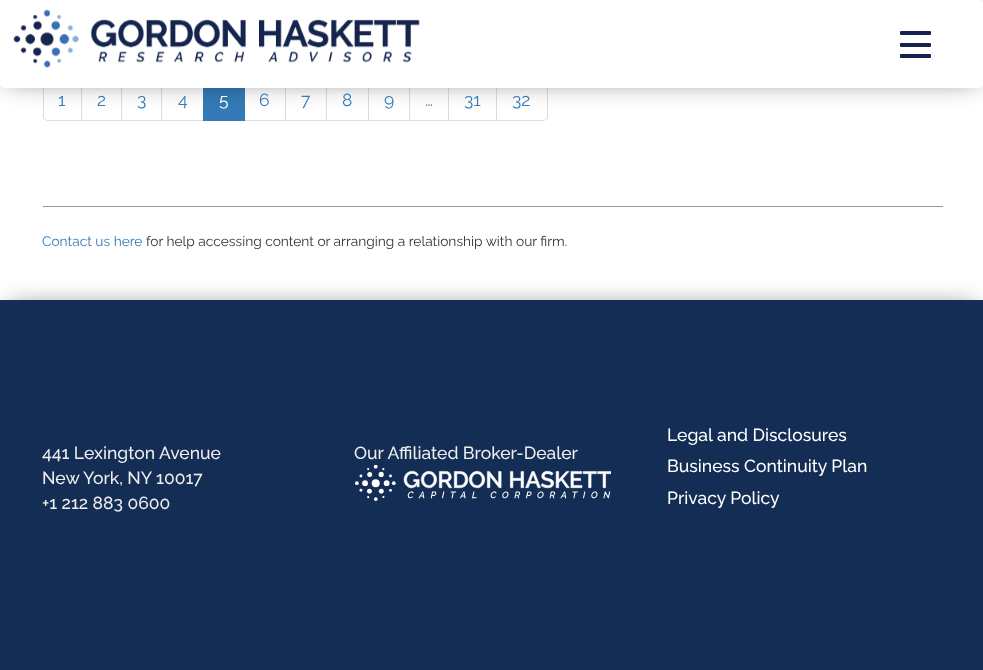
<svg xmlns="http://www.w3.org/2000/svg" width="983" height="670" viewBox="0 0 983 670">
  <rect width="100%" height="100%" fill="rgb(255,255,255)"/>
  <path d="M48 79.5H82.5V120.5H48C45.5 120.5 43.5 118.5 43.5 116V84C43.5 81.5 45.5 79.5 48 79.5Z" fill="none" stroke="rgb(221,221,221)"/>
  <rect x="82" y="88" width="1" height="32" fill="rgb(255,255,255)"/>
  <rect x="81.5" y="79.5" width="41" height="41" fill="none" stroke="rgb(221,221,221)"/>
  <rect x="122" y="88" width="1" height="32" fill="rgb(255,255,255)"/>
  <rect x="121.5" y="79.5" width="41" height="41" fill="none" stroke="rgb(221,221,221)"/>
  <rect x="162" y="88" width="1" height="32" fill="rgb(255,255,255)"/>
  <rect x="161.5" y="79.5" width="42" height="41" fill="none" stroke="rgb(221,221,221)"/>
  <rect x="244.5" y="79.5" width="41" height="41" fill="none" stroke="rgb(221,221,221)"/>
  <rect x="203" y="88" width="42" height="33" fill="rgb(51,122,183)"/>
  <rect x="285.5" y="79.5" width="42" height="41" fill="none" stroke="rgb(221,221,221)"/>
  <rect x="327" y="88" width="1" height="32" fill="rgb(255,255,255)"/>
  <rect x="326.5" y="79.5" width="42" height="41" fill="none" stroke="rgb(221,221,221)"/>
  <rect x="368.5" y="79.5" width="41" height="41" fill="none" stroke="rgb(221,221,221)"/>
  <rect x="409.5" y="79.5" width="39" height="41" fill="none" stroke="rgb(221,221,221)"/>
  <rect x="448.5" y="79.5" width="49" height="41" fill="none" stroke="rgb(221,221,221)"/>
  <path d="M496.5 79.5H543C545.5 79.5 547.5 81.5 547.5 84V116C547.5 118.5 545.5 120.5 543 120.5H496.5Z" fill="rgb(255,255,255)" stroke="rgb(221,221,221)"/>
  <rect x="8" y="8" width="968" height="72" fill="rgba(0,0,0,0.59)" filter="blur(13px)"/>
  <rect x="0" y="0" width="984" height="88" rx="5" fill="rgb(255,255,255)"/>
  <image x="0" y="0" width="420" height="68" href="pic1.png"/>
  <rect x="900" y="31" width="31" height="4" rx="1" fill="rgb(20,34,75)"/>
  <rect x="900" y="43" width="31" height="4" rx="1" fill="rgb(20,34,75)"/>
  <rect x="900" y="54" width="31" height="4" rx="1" fill="rgb(20,34,75)"/>
  <g font-family="Raleway" font-size="17.5" fill="rgb(51,122,183)">
    <text x="58" y="106">1</text>
    <text x="97" y="106">2</text>
    <text x="137" y="106">3</text>
    <text x="178" y="106">4</text>
  </g>
  <text x="219" y="106" font-family="Raleway" font-size="17.5" fill="rgb(255,255,255)">5</text>
  <g font-family="Raleway" font-size="17.5" fill="rgb(51,122,183)">
    <text x="259" y="106">6</text>
    <text x="301" y="106">7</text>
    <text x="342" y="106">8</text>
    <text x="384" y="106">9</text>
  </g>
  <text x="425" y="106" font-family="Raleway" font-size="17.5" fill="rgb(119,119,119)">…</text>
  <g font-family="Raleway" font-size="17.5" fill="rgb(51,122,183)">
    <text x="464" y="106">31</text>
    <text x="512" y="106">32</text>
  </g>
  <rect x="43" y="206" width="900" height="1" fill="rgb(153,153,153)"/>
  <text x="42" y="246" font-family="Raleway" font-size="13.75" fill="rgb(51,122,183)">Contact us here</text>
  <text x="146" y="246" font-family="Raleway" font-size="13.75" fill="rgb(51,51,51)">for help accessing content or arranging a relationship with our firm.</text>
  <rect x="8" y="308" width="968" height="355" fill="rgba(0,0,0,0.59)" filter="blur(13px)"/>
  <rect x="0" y="300" width="983" height="370" fill="rgb(20,45,84)"/>
  <g font-family="Raleway" font-size="17.5" font-weight="500" fill="rgb(238,238,238)">
    <text>
      <tspan x="42" y="459">441 Lexington Avenue</tspan>
      <tspan x="42" y="484">New York, NY 10017</tspan>
      <tspan x="42" y="509">+1 212 883 0600</tspan>
    </text>
    <text x="354" y="459">Our Affiliated Broker-Dealer</text>
  </g>
  <image x="355" y="465" width="256" height="36" href="pic2.png"/>
  <g font-family="Raleway" font-size="17.5" font-weight="500" fill="rgb(255,255,255)">
    <text>
      <tspan x="667" y="441">Legal and Disclosures</tspan>
      <tspan x="667" y="472">Business Continuity Plan</tspan>
      <tspan x="667" y="504">Privacy Policy</tspan>
    </text>
  </g>
</svg>
